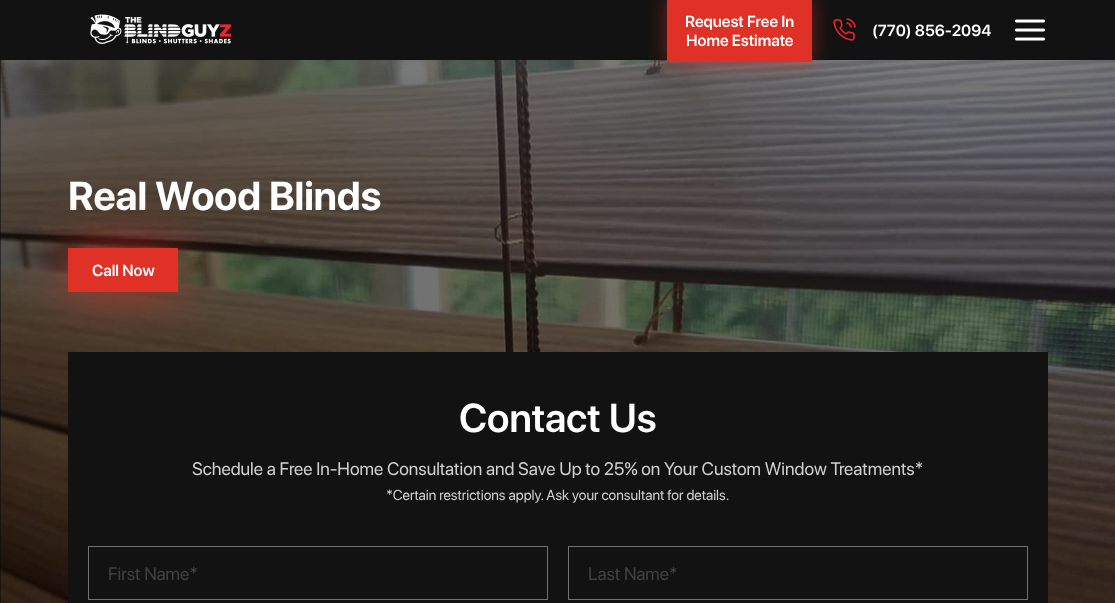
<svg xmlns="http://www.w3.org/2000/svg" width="1115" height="603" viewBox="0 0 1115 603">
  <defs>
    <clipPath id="clip1"><rect x="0" y="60" width="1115" height="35"/></clipPath>
  </defs>
  <rect width="100%" height="100%" fill="rgb(18,18,18)"/>
  <rect x="0" y="60" width="1" height="543" fill="rgb(8,8,8)"/>
  <image x="0" y="60" width="1115" height="543" href="pic4.png"/>
  <g clip-path="url(#clip1)">
    <rect x="0" y="10" width="1115" height="60" fill="rgba(255,255,255,0.1)" filter="blur(30px)"/>
  </g>
  <image x="90" y="14" width="141" height="30" href="pic1.png"/>
  <rect x="667" y="-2" width="145" height="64" fill="rgba(223,49,38,0.5)" filter="blur(10px)"/>
  <rect x="667" y="0" width="145" height="62" fill="rgb(223,49,38)"/>
  <g font-family="SF Pro Display" font-size="16" font-weight="600" fill="rgb(255,255,255)">
    <text x="685" y="27">Request Free In</text>
    <text x="686" y="46">Home Estimate</text>
  </g>
  <image x="833" y="18" width="23" height="23" href="pic2.png"/>
  <text x="872" y="36" font-family="SF Pro Display" font-size="16" font-weight="600" fill="rgb(255,255,255)">(770) 856-2094</text>
  <image x="1015" y="19" width="30" height="22" href="pic3.png"/>
  <text x="68" y="210" font-family="SF Pro Display" font-size="40" font-weight="bold" fill="rgb(255,255,255)">Real Wood Blinds</text>
  <rect x="68" y="248" width="110" height="44" fill="rgba(223,49,38,0.7)" filter="blur(25px)"/>
  <rect x="68" y="248" width="110" height="44" fill="rgb(223,49,38)"/>
  <text x="92" y="276" font-family="SF Pro Display" font-size="16" font-weight="600" fill="rgb(255,255,255)">Call Now</text>
  <rect x="68" y="352" width="980" height="251" fill="rgb(18,18,18)"/>
  <text x="459" y="432" font-family="SF Pro Display" font-size="40" font-weight="600" fill="rgb(255,255,255)">Contact Us</text>
  <text x="192" y="475" font-family="SF Pro Display" font-size="18" fill="rgb(208,208,208)">Schedule a Free In-Home Consultation and Save Up to 25% on Your Custom Window Treatments*</text>
  <text x="386" y="500" font-family="SF Pro Display" font-size="14.4" fill="rgb(208,208,208)">*Certain restrictions apply. Ask your consultant for details.</text>
  <rect x="88.5" y="546.5" width="459" height="53" fill="none" stroke="rgb(113,113,113)"/>
  <text x="108" y="580" font-family="SF Pro Display" font-size="18" fill="rgb(65,65,65)">First Name*</text>
  <rect x="568.5" y="546.5" width="459" height="53" fill="none" stroke="rgb(113,113,113)"/>
  <text x="588" y="580" font-family="SF Pro Display" font-size="18" fill="rgb(65,65,65)">Last Name*</text>
</svg>
